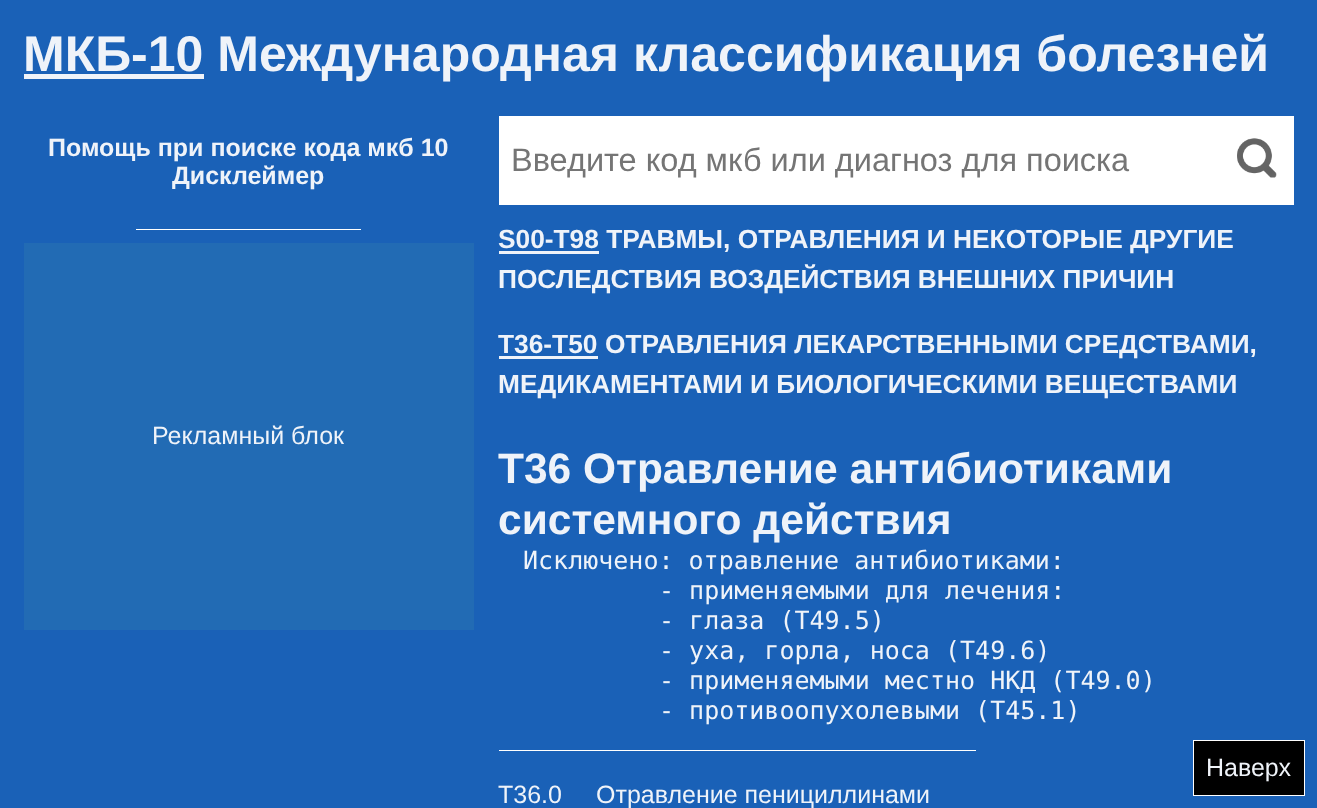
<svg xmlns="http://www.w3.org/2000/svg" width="1317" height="808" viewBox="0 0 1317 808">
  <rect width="100%" height="100%" fill="rgb(26,97,183)"/>
  <rect x="24" y="74" width="180" height="5" fill="rgb(239,243,249)"/>
  <text x="23" y="71" font-family="Liberation Sans" font-size="50" font-weight="bold" fill="rgb(239,243,249)">МКБ-10 Международная классификация болезней</text>
  <g font-family="Liberation Sans" font-size="25" font-weight="bold" fill="rgb(239,243,249)">
    <text x="48" y="156">Помощь при поиске кода мкб 10</text>
    <text x="172" y="184">Дисклеймер</text>
  </g>
  <rect x="136" y="229" width="225" height="1" fill="rgb(255,255,255)"/>
  <rect x="24" y="243" width="450" height="387" fill="rgb(34,107,180)"/>
  <text x="152" y="444" font-family="Liberation Sans" font-size="25" fill="rgb(239,243,249)">Рекламный блок</text>
  <rect x="499" y="116" width="795" height="89" fill="rgb(255,255,255)"/>
  <text x="511" y="171" font-family="Liberation Sans" font-size="32.5" fill="rgb(117,117,117)">Введите код мкб или диагноз для поиска</text>
  <image x="1237" y="138" width="40" height="40" href="pic1.png"/>
  <rect x="499" y="251" width="100" height="3" fill="rgb(239,243,249)"/>
  <g font-family="Liberation Sans" font-size="26.3" font-weight="bold" fill="rgb(239,243,249)">
    <text>
      <tspan x="498" y="248">S00-T98 ТРАВМЫ, ОТРАВЛЕНИЯ И НЕКОТОРЫЕ ДРУГИЕ</tspan>
      <tspan x="498" y="288">ПОСЛЕДСТВИЯ ВОЗДЕЙСТВИЯ ВНЕШНИХ ПРИЧИН</tspan>
    </text>
    <text x="498" y="353">T36-T50</text>
  </g>
  <rect x="499" y="356" width="99" height="3" fill="rgb(239,243,249)"/>
  <g font-family="Liberation Sans" font-size="26.3" font-weight="bold" fill="rgb(239,243,249)">
    <text x="605" y="353">ОТРАВЛЕНИЯ ЛЕКАРСТВЕННЫМИ СРЕДСТВАМИ,</text>
    <text x="498" y="393">МЕДИКАМЕНТАМИ И БИОЛОГИЧЕСКИМИ ВЕЩЕСТВАМИ</text>
  </g>
  <g font-family="Liberation Sans" font-size="42.5" font-weight="bold" fill="rgb(239,243,249)">
    <text>
      <tspan x="498" y="483">T36 Отравление антибиотиками</tspan>
      <tspan x="498" y="534">системного действия</tspan>
    </text>
  </g>
  <g font-family="DejaVu Sans Mono" font-size="25" fill="rgb(239,243,249)">
    <text x="523" y="569">Исключено: отравление антибиотиками:</text>
    <text>
      <tspan x="659" y="599">- применяемыми для лечения:</tspan>
      <tspan x="659" y="629">- глаза (T49.5)</tspan>
      <tspan x="659" y="659">- уха, горла, носа (T49.6)</tspan>
      <tspan x="659" y="689">- применяемыми местно НКД (T49.0)</tspan>
      <tspan x="659" y="719">- противоопухолевыми (T45.1)</tspan>
    </text>
  </g>
  <rect x="499" y="750" width="477" height="1" fill="rgb(255,255,255)"/>
  <g font-family="Liberation Sans" font-size="25" fill="rgb(239,243,249)">
    <text x="498" y="803">T36.0</text>
    <text x="596" y="803">Отравление пенициллинами</text>
  </g>
  <rect x="1193.5" y="740.5" width="111" height="55" fill="rgb(0,0,0)" stroke="rgb(255,255,255)"/>
  <text x="1206" y="776" font-family="Liberation Sans" font-size="25" fill="rgb(239,243,249)">Наверх</text>
</svg>
